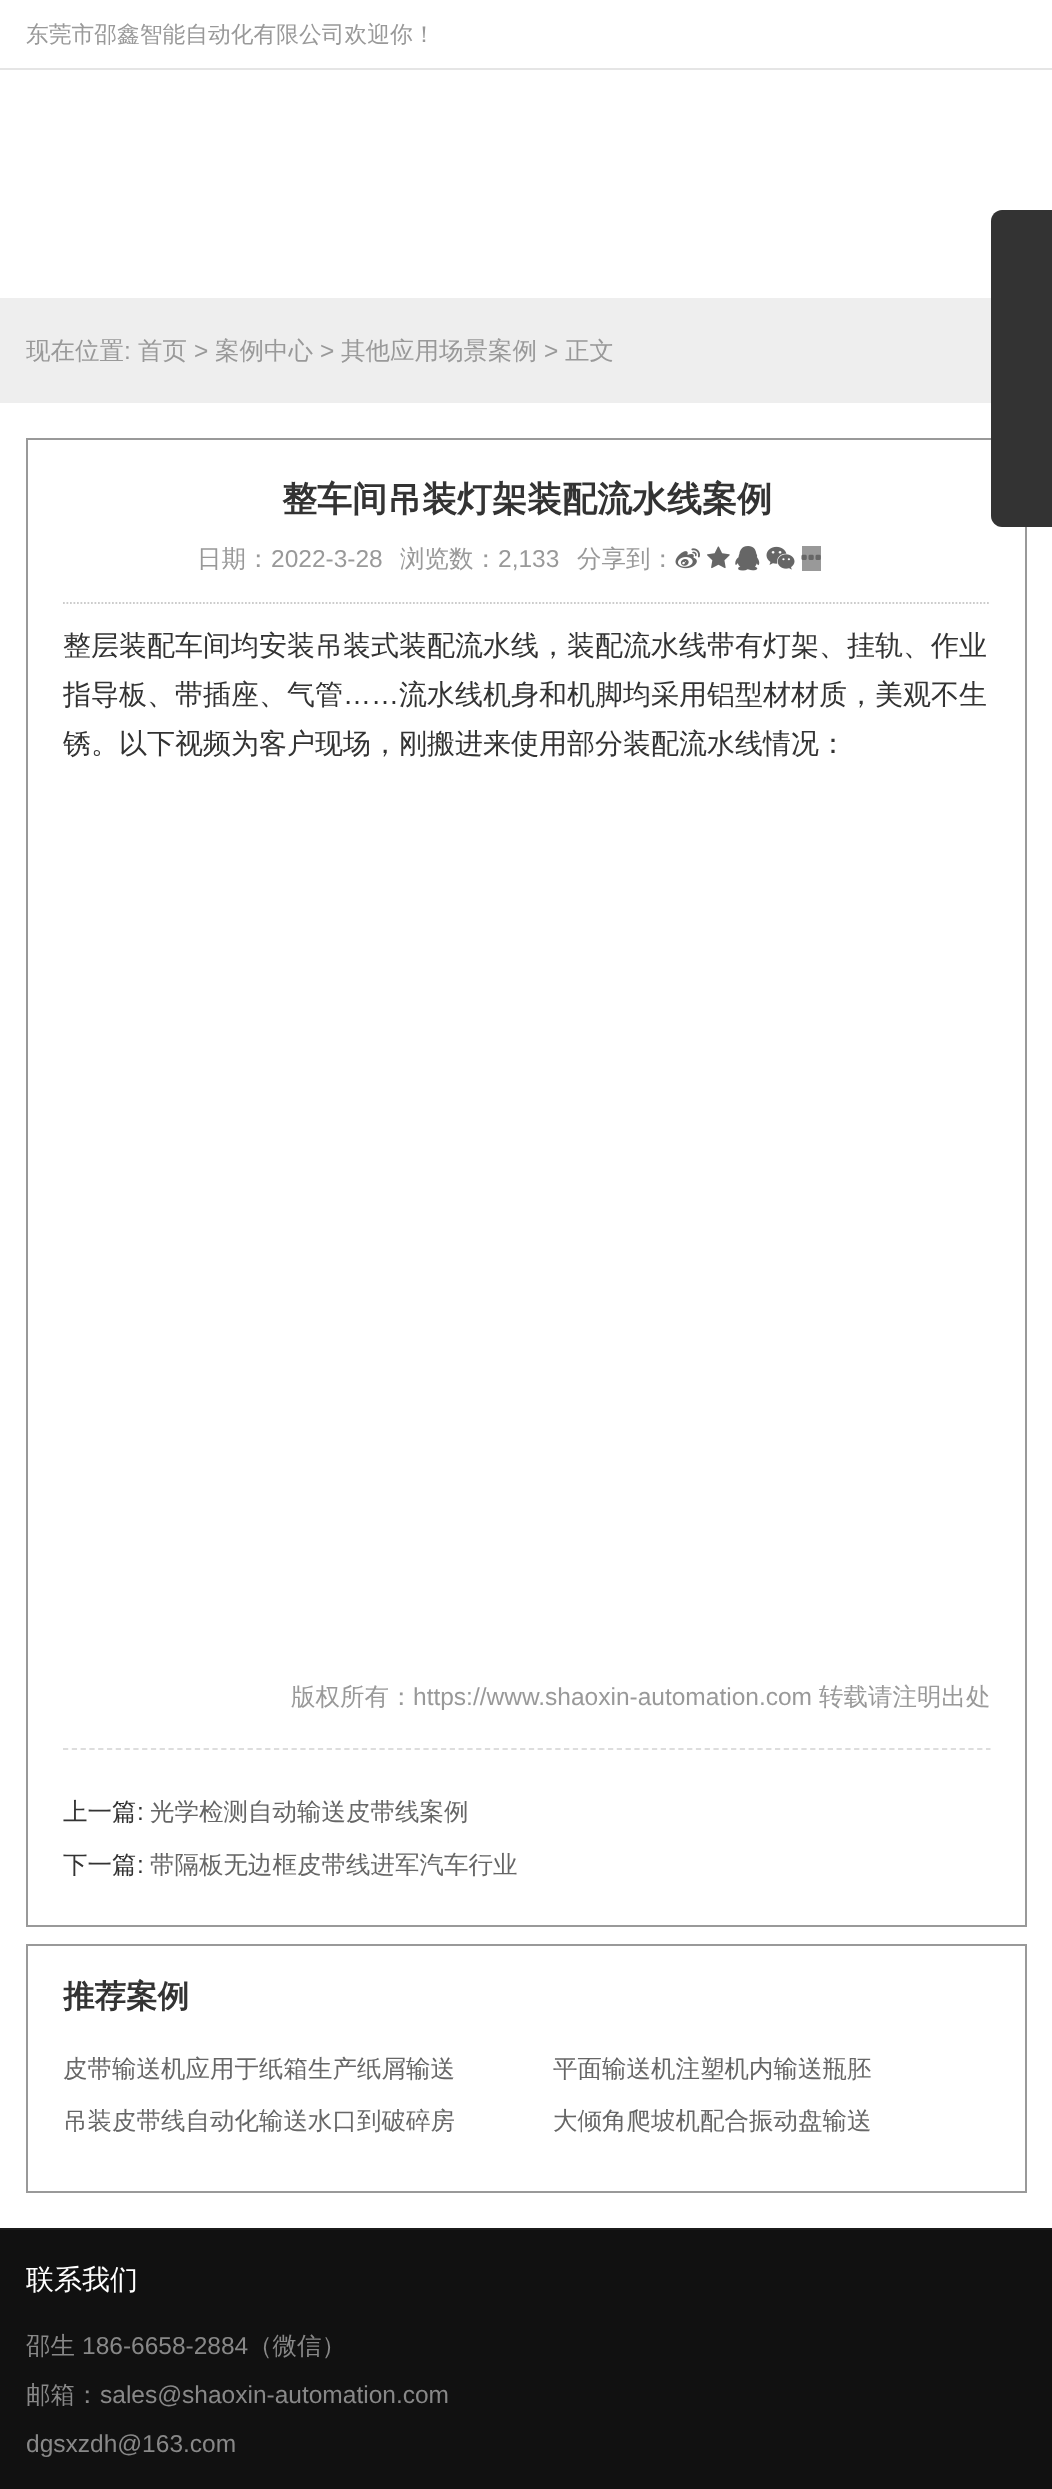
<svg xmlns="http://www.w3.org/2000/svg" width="1052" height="2489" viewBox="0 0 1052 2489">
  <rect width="100%" height="100%" fill="rgb(255,255,255)"/>
  <rect x="0" y="68" width="1052" height="2" fill="rgb(229,229,229)"/>
  <text x="26" y="42" font-family="WenQuanYi Zen Hei" font-size="22.75" font-weight="500" fill="rgb(153,153,153)">东莞市邵鑫智能自动化有限公司欢迎你！</text>
  <rect x="0" y="298" width="991" height="105" fill="rgb(238,238,238)"/>
  <text x="26" y="359" font-family="WenQuanYi Zen Hei" font-size="24.5" font-weight="500" fill="rgb(153,153,153)">现在位置</text>
  <text x="124" y="359" font-family="Liberation Sans" font-size="24.5" fill="rgb(153,153,153)">:</text>
  <text x="138" y="359" font-family="WenQuanYi Zen Hei" font-size="24.5" font-weight="500" fill="rgb(153,153,153)">首页</text>
  <text x="194" y="359" font-family="Liberation Sans" font-size="24.5" fill="rgb(153,153,153)">&gt;</text>
  <text x="215" y="359" font-family="WenQuanYi Zen Hei" font-size="24.5" font-weight="500" fill="rgb(153,153,153)">案例中心</text>
  <text x="320" y="359" font-family="Liberation Sans" font-size="24.5" fill="rgb(153,153,153)">&gt;</text>
  <text x="341" y="359" font-family="WenQuanYi Zen Hei" font-size="24.5" font-weight="500" fill="rgb(153,153,153)">其他应用场景案例</text>
  <text x="544" y="359" font-family="Liberation Sans" font-size="24.5" fill="rgb(153,153,153)">&gt;</text>
  <text x="565" y="359" font-family="WenQuanYi Zen Hei" font-size="24.5" font-weight="500" fill="rgb(153,153,153)">正文</text>
  <rect x="27" y="439" width="999" height="1487" fill="none" stroke="rgb(153,153,153)" stroke-width="2"/>
  <path d="M1002 210H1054V527H1002C996 527 991 522 991 516V221C991 215 996 210 1002 210Z" fill="rgb(51,51,51)"/>
  <path d="M63 603H990.5" fill="none" stroke="rgb(204,204,204)" stroke-width="1.8" stroke-dasharray="1.75 1.75"/>
  <text x="282" y="511" font-family="WenQuanYi Zen Hei" font-size="35" font-weight="bold" fill="rgb(51,51,51)">整车间吊装灯架装配流水线案例</text>
  <text x="197" y="567" font-family="WenQuanYi Zen Hei" font-size="24.5" font-weight="500" fill="rgb(153,153,153)">日期：</text>
  <text x="271" y="567" font-family="Liberation Sans" font-size="24.5" fill="rgb(153,153,153)">2022-3-28</text>
  <text x="400" y="567" font-family="WenQuanYi Zen Hei" font-size="24.5" font-weight="500" fill="rgb(153,153,153)">浏览数：</text>
  <text x="498" y="567" font-family="Liberation Sans" font-size="24.5" fill="rgb(153,153,153)">2,133</text>
  <text x="577" y="567" font-family="WenQuanYi Zen Hei" font-size="24.5" font-weight="500" fill="rgb(153,153,153)">分享到：</text>
  <image x="675" y="548" width="25" height="21" href="pic1.png"/>
  <image x="707" y="546" width="23" height="23" href="pic2.png"/>
  <image x="735" y="546" width="25" height="25" href="pic3.png"/>
  <image x="766" y="546" width="29" height="24" href="pic4.png"/>
  <rect x="802" y="546" width="19" height="25" fill="rgb(153,153,153)"/>
  <image x="801" y="554" width="20" height="6" href="pic5.png"/>
  <g font-family="WenQuanYi Zen Hei" font-size="28" font-weight="500" fill="rgb(51,51,51)">
    <text>
      <tspan x="63" y="655">整层装配车间均安装吊装式装配流水线，装配流水线带有灯架、挂轨、作业</tspan>
      <tspan x="63" y="704">指导板、带插座、气管</tspan>
    </text>
  </g>
  <text x="343" y="704" font-family="Liberation Sans" font-size="28" fill="rgb(51,51,51)">……</text>
  <g font-family="WenQuanYi Zen Hei" font-size="28" font-weight="500" fill="rgb(51,51,51)">
    <text x="399" y="704">流水线机身和机脚均采用铝型材材质，美观不生</text>
    <text x="63" y="753">锈。以下视频为客户现场，刚搬进来使用部分装配流水线情况：</text>
  </g>
  <path d="M63 1749H990.5" fill="none" stroke="rgb(221,221,221)" stroke-width="1.8" stroke-dasharray="5.25 3.54"/>
  <text x="291" y="1705" font-family="WenQuanYi Zen Hei" font-size="24.5" font-weight="500" fill="rgb(153,153,153)">版权所有：</text>
  <text x="413" y="1705" font-family="Liberation Sans" font-size="24.5" fill="rgb(153,153,153)">https://www.shaoxin-automation.com</text>
  <text x="819" y="1705" font-family="WenQuanYi Zen Hei" font-size="24.5" font-weight="500" fill="rgb(153,153,153)">转载请注明出处</text>
  <text x="63" y="1820" font-family="WenQuanYi Zen Hei" font-size="24.5" font-weight="500" fill="rgb(51,51,51)">上一篇</text>
  <text x="137" y="1820" font-family="Liberation Sans" font-size="24.5" fill="rgb(51,51,51)">:</text>
  <text x="150" y="1820" font-family="WenQuanYi Zen Hei" font-size="24.5" font-weight="500" fill="rgb(102,102,102)">光学检测自动输送皮带线案例</text>
  <text x="63" y="1873" font-family="WenQuanYi Zen Hei" font-size="24.5" font-weight="500" fill="rgb(51,51,51)">下一篇</text>
  <text x="137" y="1873" font-family="Liberation Sans" font-size="24.5" fill="rgb(51,51,51)">:</text>
  <text x="150" y="1873" font-family="WenQuanYi Zen Hei" font-size="24.5" font-weight="500" fill="rgb(102,102,102)">带隔板无边框皮带线进军汽车行业</text>
  <rect x="27" y="1945" width="999" height="247" fill="none" stroke="rgb(153,153,153)" stroke-width="2"/>
  <text x="63" y="2007" font-family="WenQuanYi Zen Hei" font-size="31.5" font-weight="bold" fill="rgb(51,51,51)">推荐案例</text>
  <g font-family="WenQuanYi Zen Hei" font-size="24.5" font-weight="500" fill="rgb(102,102,102)">
    <text x="63" y="2077">皮带输送机应用于纸箱生产纸屑输送</text>
    <text x="553" y="2077">平面输送机注塑机内输送瓶胚</text>
    <text x="63" y="2129">吊装皮带线自动化输送水口到破碎房</text>
    <text x="553" y="2129">大倾角爬坡机配合振动盘输送</text>
  </g>
  <rect x="0" y="2230" width="1052" height="259" fill="rgb(17,17,17)"/>
  <rect x="0" y="2228" width="1052" height="2" fill="rgb(27,27,27)"/>
  <text x="26" y="2289" font-family="WenQuanYi Zen Hei" font-size="28" font-weight="500" fill="rgb(255,255,255)">联系我们</text>
  <text x="26" y="2354" font-family="WenQuanYi Zen Hei" font-size="24.5" font-weight="500" fill="rgb(136,136,136)">邵生</text>
  <text x="82" y="2354" font-family="Liberation Sans" font-size="24.5" fill="rgb(136,136,136)">186-6658-2884</text>
  <g font-family="WenQuanYi Zen Hei" font-size="24.5" font-weight="500" fill="rgb(136,136,136)">
    <text x="248" y="2354">（微信）</text>
    <text x="26" y="2403">邮箱：</text>
  </g>
  <g font-family="Liberation Sans" font-size="24.5" fill="rgb(136,136,136)">
    <text x="100" y="2403">sales@shaoxin-automation.com</text>
    <text x="26" y="2452">dgsxzdh@163.com</text>
  </g>
</svg>
